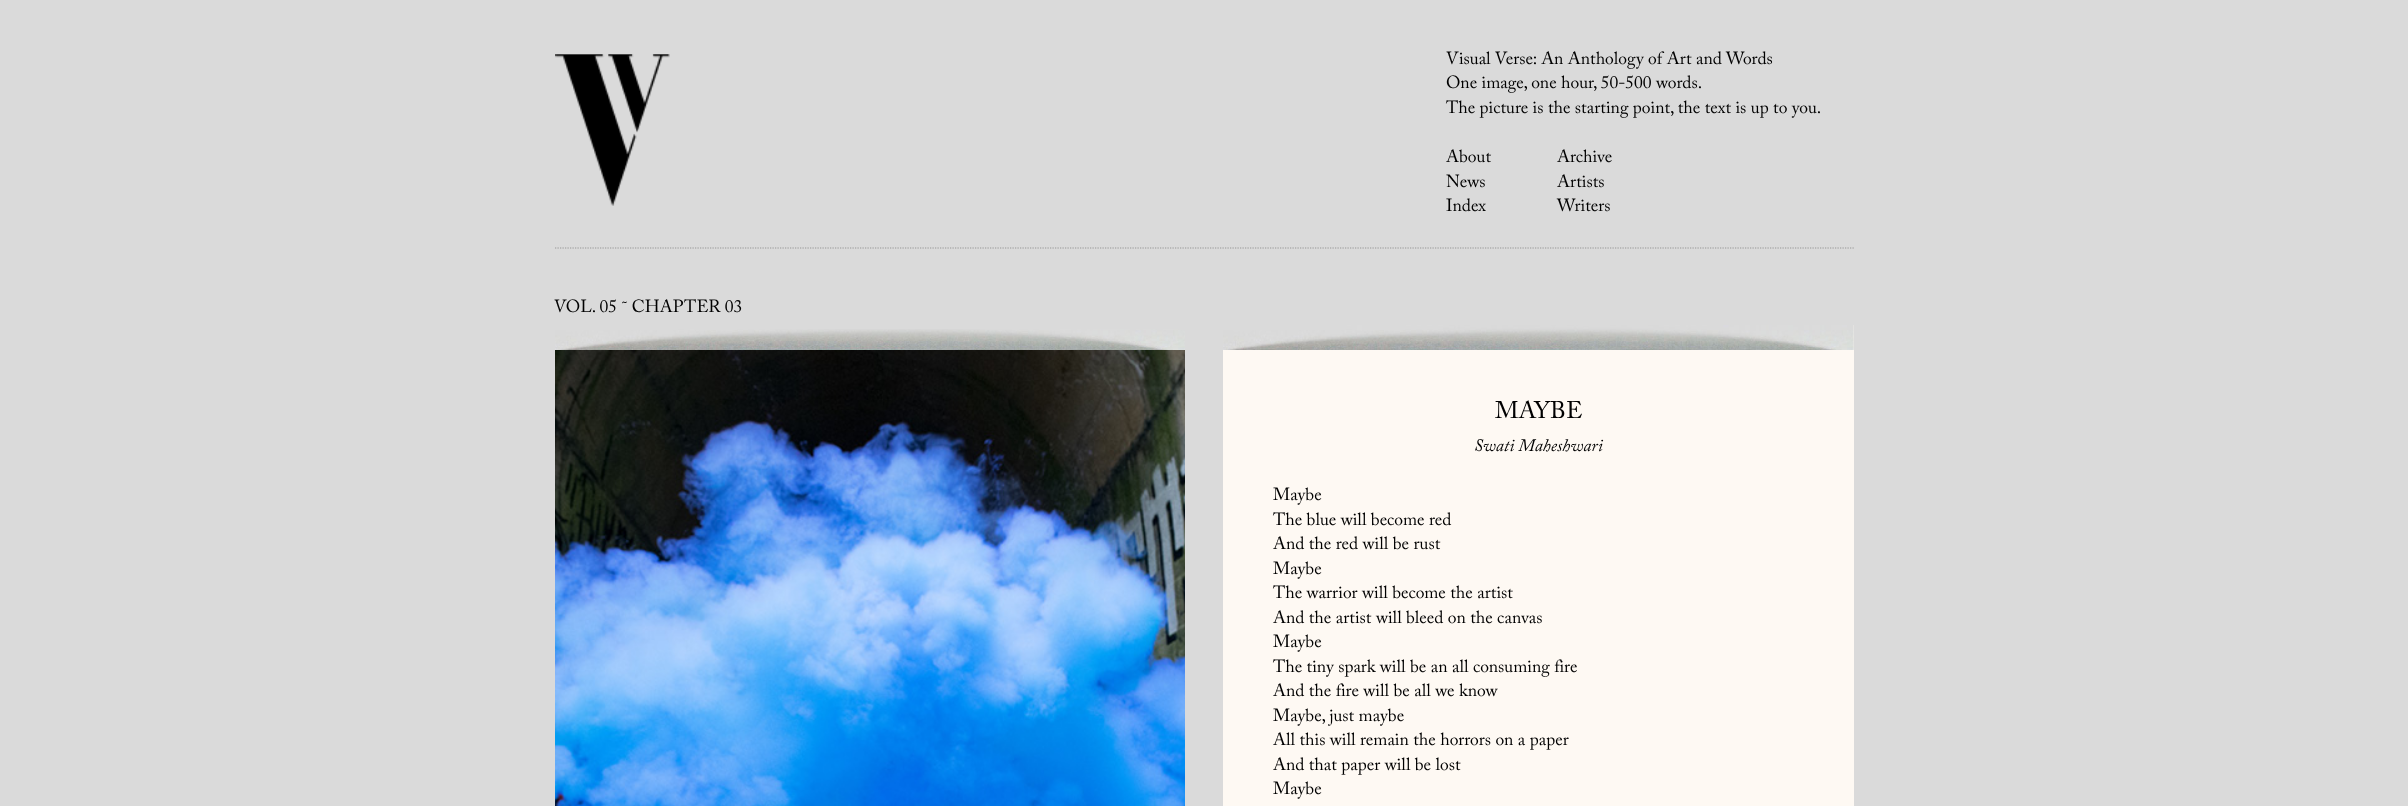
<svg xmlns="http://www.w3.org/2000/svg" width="2408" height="806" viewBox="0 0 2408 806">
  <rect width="100%" height="100%" fill="rgb(218,218,218)"/>
  <path d="M555 248H1855" fill="none" stroke="rgb(149,149,149)" stroke-width="1.2" stroke-dasharray="1.25 1.25"/>
  <image x="555" y="54" width="115" height="152" href="pic1.png"/>
  <g font-family="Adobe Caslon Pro" font-size="17.5" fill="rgb(0,0,0)">
    <text>
      <tspan x="1446" y="64">Visual Verse: An Anthology of Art and Words</tspan>
      <tspan x="1446" y="88">One image, one hour, 50-500 words.</tspan>
      <tspan x="1446" y="113">The picture is the starting point, the text is up to you.</tspan>
    </text>
    <text>
      <tspan x="1446" y="162">About</tspan>
      <tspan x="1446" y="187">News</tspan>
      <tspan x="1446" y="211">Index</tspan>
    </text>
    <text>
      <tspan x="1557" y="162">Archive</tspan>
      <tspan x="1557" y="187">Artists</tspan>
      <tspan x="1557" y="211">Writers</tspan>
    </text>
    <text x="554" y="312">VOL. 05 ˜ CHAPTER 03</text>
  </g>
  <image x="555" y="329" width="630" height="21" href="pic2.png"/>
  <image x="555" y="350" width="630" height="456" href="pic3.png"/>
  <rect x="1223" y="325" width="631" height="481" fill="rgb(254,249,243)"/>
  <image x="1223" y="325" width="631" height="25" href="pic4.png"/>
  <text x="1495" y="418" font-family="Adobe Caslon Pro" font-size="24" fill="rgb(0,0,0)">MAYBE</text>
  <text x="1474" y="451" font-family="Adobe Caslon Pro" font-size="17.5" font-style="italic" fill="rgb(0,0,0)">Swati Maheshwari</text>
  <g font-family="Adobe Caslon Pro" font-size="17.5" fill="rgb(0,0,0)">
    <text>
      <tspan x="1273" y="500">Maybe</tspan>
      <tspan x="1273" y="525">The blue will become red</tspan>
      <tspan x="1273" y="549">And the red will be rust</tspan>
      <tspan x="1273" y="574">Maybe</tspan>
      <tspan x="1273" y="598">The warrior will become the artist</tspan>
      <tspan x="1273" y="623">And the artist will bleed on the canvas</tspan>
      <tspan x="1273" y="647">Maybe</tspan>
      <tspan x="1273" y="672">The tiny spark will be an all consuming fire</tspan>
      <tspan x="1273" y="696">And the fire will be all we know</tspan>
      <tspan x="1273" y="721">Maybe, just maybe</tspan>
      <tspan x="1273" y="745">All this will remain the horrors on a paper</tspan>
      <tspan x="1273" y="770">And that paper will be lost</tspan>
      <tspan x="1273" y="794">Maybe</tspan>
    </text>
  </g>
</svg>
